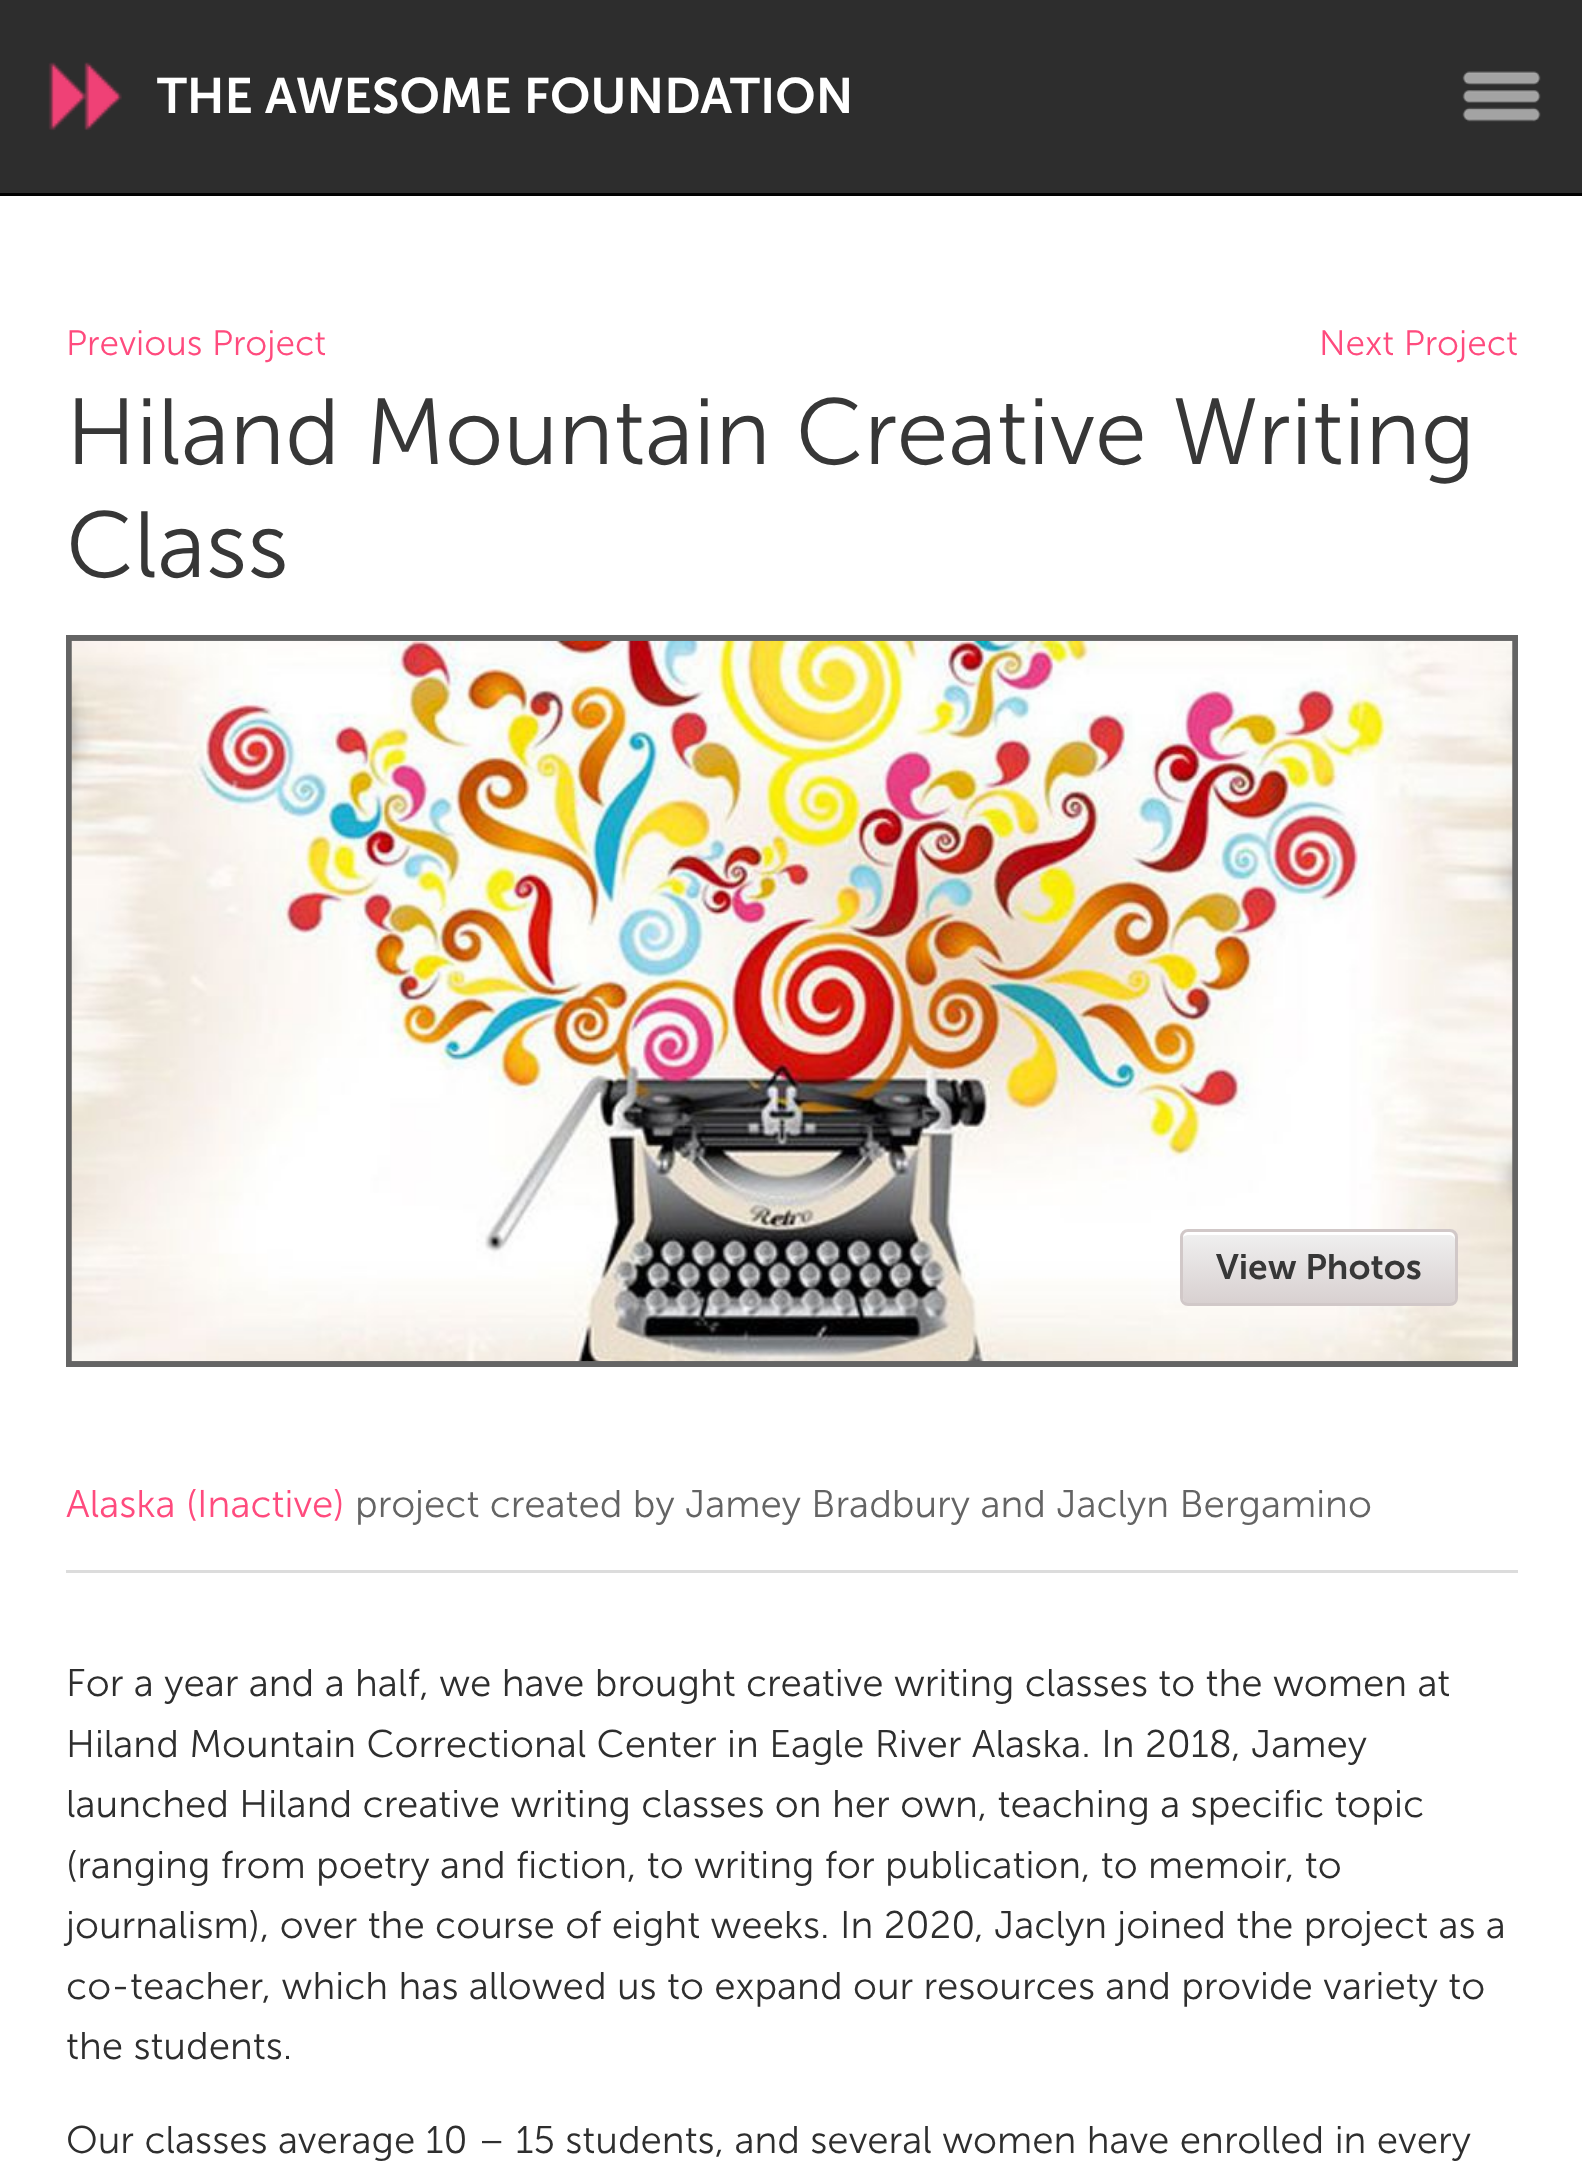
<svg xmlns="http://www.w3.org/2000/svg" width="1582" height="2180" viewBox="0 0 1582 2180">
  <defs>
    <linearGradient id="g1" gradientUnits="userSpaceOnUse" x1="1319" y1="1232" x2="1319" y2="1304"><stop offset="0" stop-color="rgb(240,240,240)"/><stop offset="1" stop-color="rgb(216,208,208)"/></linearGradient>
  </defs>
  <rect width="100%" height="100%" fill="rgb(255,255,255)"/>
  <rect x="0" y="0" width="1582" height="193" fill="rgb(45,45,45)"/>
  <rect x="0" y="193" width="1582" height="3" fill="rgb(0,0,0)"/>
  <image x="48" y="62" width="74" height="69" href="pic1.png"/>
  <text x="157" y="113" font-family="'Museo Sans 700'" font-size="49.5" font-weight="600" fill="rgb(255,255,255)">THE AWESOME FOUNDATION</text>
  <image x="1462" y="71" width="79" height="51" href="pic2.png"/>
  <g font-family="'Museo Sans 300'" font-size="35.25" font-weight="300" fill="rgb(255,75,126)">
    <text x="66" y="355">Previous Project</text>
    <text x="1319" y="355">Next Project</text>
  </g>
  <g font-family="'Museo Sans 300'" font-size="93.5" font-weight="300" fill="rgb(55,55,55)">
    <text>
      <tspan x="66" y="464">Hiland Mountain Creative Writing</tspan>
      <tspan x="66" y="577">Class</tspan>
    </text>
  </g>
  <rect x="66" y="635" width="1452" height="732" fill="rgb(100,100,100)"/>
  <image x="71" y="640" width="1442" height="722" href="pic3.png"/>
  <rect x="1183" y="1232" width="272" height="72" rx="6" fill="url(#g1)"/>
  <path d="M1188 1235H1449C1452 1235 1455 1237 1455 1240V1238C1455 1235 1452 1232 1449 1232H1189C1186 1232 1183 1234 1183 1237C1184 1236 1186 1235 1188 1235Z" fill="rgb(255,255,255)"/>
  <rect x="1181.5" y="1230.5" width="275" height="74" rx="6.5" fill="none" stroke="rgb(209,200,200)" stroke-width="3"/>
  <text x="1216" y="1279" font-family="'Museo Sans 700'" font-size="35.25" font-weight="600" fill="rgb(55,55,55)">View Photos</text>
  <rect x="66" y="1570" width="1452" height="3" fill="rgb(220,220,220)"/>
  <text x="66" y="1517" font-family="'Museo Sans 300'" font-size="38.5" font-weight="300" fill="rgb(255,75,126)">Alaska (Inactive)</text>
  <text x="355" y="1517" font-family="'Museo Sans 300'" font-size="38.5" font-weight="300" fill="rgb(100,100,100)">project created by Jamey Bradbury and Jaclyn Bergamino</text>
  <g font-family="'Museo Sans 300'" font-size="38.5" font-weight="300" fill="rgb(46,46,46)">
    <text>
      <tspan x="66" y="1696">For a year and a half, we have brought creative writing classes to the women at</tspan>
      <tspan x="66" y="1757">Hiland Mountain Correctional Center in Eagle River Alaska. In 2018, Jamey</tspan>
      <tspan x="66" y="1817">launched Hiland creative writing classes on her own, teaching a specific topic</tspan>
      <tspan x="66" y="1878">(ranging from poetry and fiction, to writing for publication, to memoir, to</tspan>
      <tspan x="66" y="1938">journalism), over the course of eight weeks. In 2020, Jaclyn joined the project as a</tspan>
      <tspan x="66" y="1999">co-teacher, which has allowed us to expand our resources and provide variety to</tspan>
      <tspan x="66" y="2059">the students.</tspan>
    </text>
    <text x="66" y="2153">Our classes average 10 – 15 students, and several women have enrolled in every</text>
  </g>
</svg>
